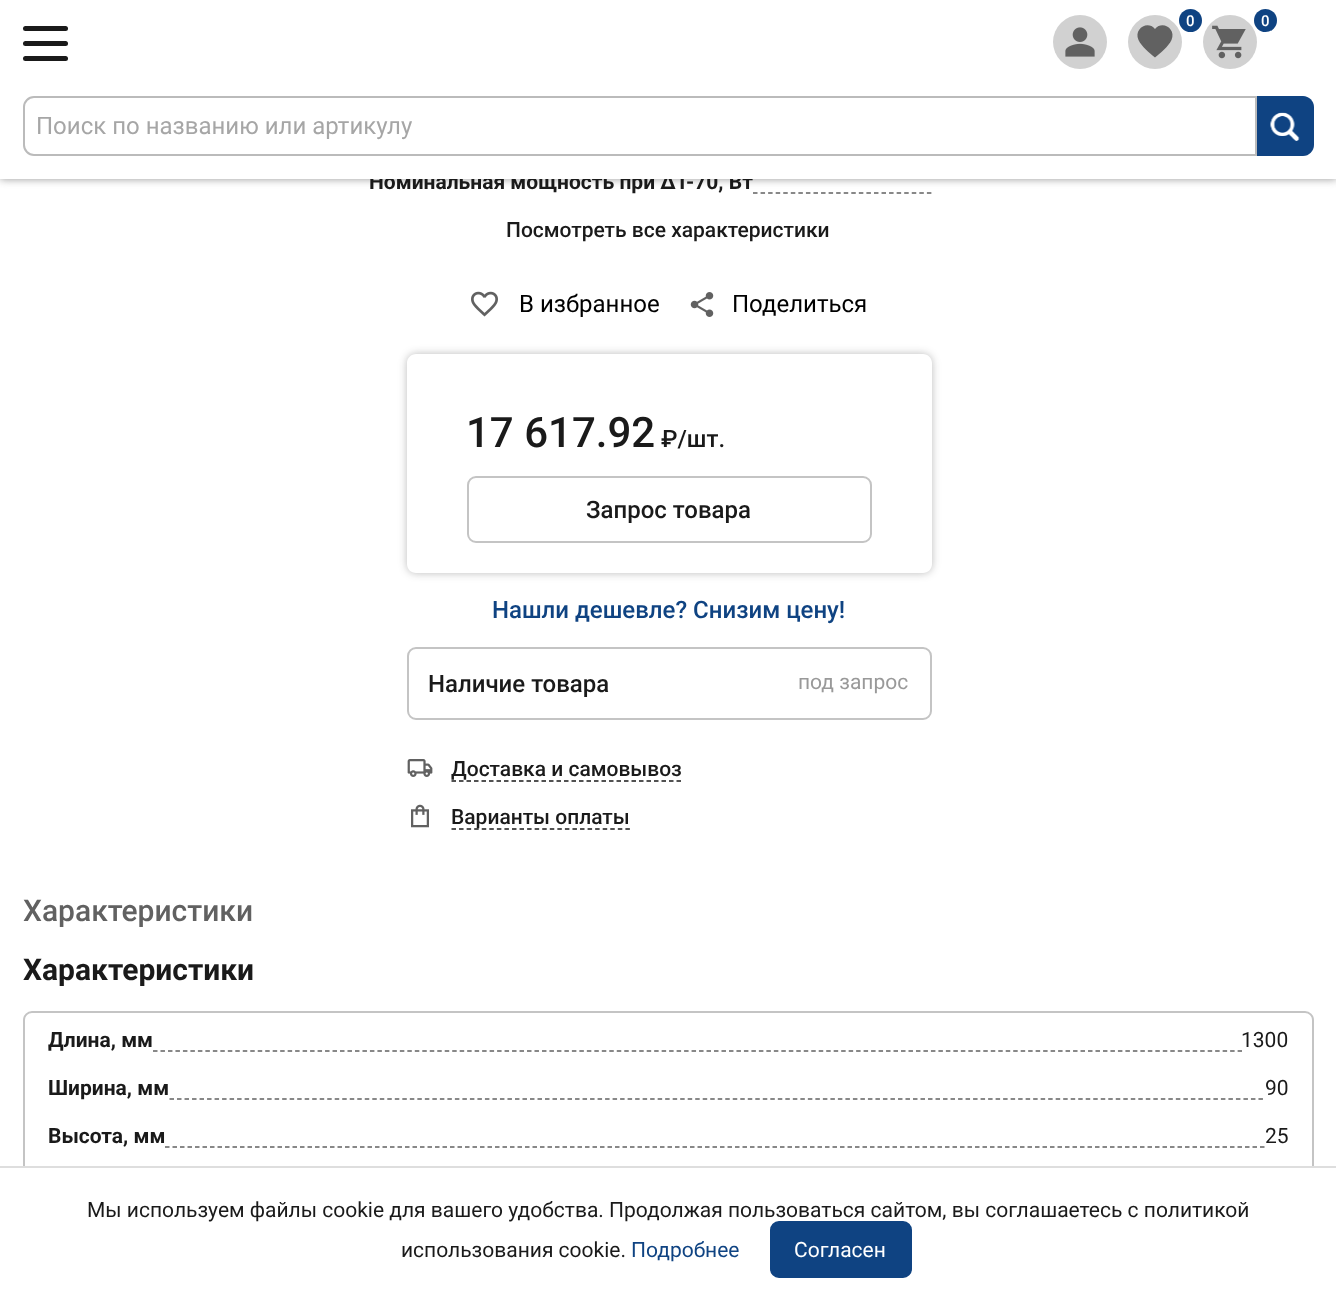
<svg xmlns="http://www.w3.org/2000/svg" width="1336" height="1307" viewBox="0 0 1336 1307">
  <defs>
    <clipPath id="clip1"><path d="M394 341H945V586H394ZM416 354H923C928 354 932 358 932 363V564C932 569 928 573 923 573H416C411 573 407 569 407 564V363C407 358 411 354 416 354Z" clip-rule="evenodd"/></clipPath>
  </defs>
  <rect width="100%" height="100%" fill="rgb(255,255,255)"/>
  <rect x="0" y="0" width="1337" height="179" fill="rgb(150,150,150)" filter="blur(4px)"/>
  <text x="369" y="189" font-family="Roboto" font-size="21" font-weight="bold" fill="rgb(26,26,26)">Номинальная мощность при ΔT-70, Вт</text>
  <rect x="0" y="0" width="1336" height="179" fill="rgb(255,255,255)"/>
  <circle cx="1080" cy="42" r="27" fill="rgb(209,209,209)"/>
  <image x="1065" y="27" width="30" height="30" href="pic1.png"/>
  <circle cx="1155" cy="42" r="27" fill="rgb(209,209,209)"/>
  <path d="M1155 57.5C1149.5 53 1141.5 46.5 1138.5 40C1133.5 29 1147.5 20 1155 29C1162.5 20 1176.5 29 1171.5 40C1168.5 46.5 1160.5 53 1155 57.5Z" fill="rgb(97,97,97)"/>
  <circle cx="1190.5" cy="20.5" r="11.5" fill="rgb(15,67,130)"/>
  <text x="1186" y="26" font-family="Roboto" font-size="15" font-weight="500" fill="rgb(255,255,255)">0</text>
  <circle cx="1230" cy="42" r="27" fill="rgb(209,209,209)"/>
  <image x="1212" y="25" width="34" height="34" href="pic2.png"/>
  <circle cx="1265.5" cy="20.5" r="11.5" fill="rgb(15,67,130)"/>
  <text x="1261" y="26" font-family="Roboto" font-size="15" font-weight="500" fill="rgb(255,255,255)">0</text>
  <rect x="23" y="26" width="45" height="5" rx="2.5" fill="rgb(26,26,26)"/>
  <rect x="23" y="41" width="45" height="5" rx="2.5" fill="rgb(26,26,26)"/>
  <rect x="23" y="56" width="45" height="5" rx="2.5" fill="rgb(26,26,26)"/>
  <path d="M34 97H1256V155H34C28.5 155 24 150.5 24 145V107C24 101.5 28.5 97 34 97Z" fill="none" stroke="rgb(187,187,187)" stroke-width="2"/>
  <text x="36" y="134" font-family="Roboto" font-size="24" fill="rgb(166,166,166)">Поиск по названию или артикулу</text>
  <path d="M1257 96H1303C1309 96 1314 101 1314 107V145C1314 151 1309 156 1303 156H1257Z" fill="rgb(15,67,130)"/>
  <image x="1270" y="112" width="30" height="29" href="pic3.png"/>
  <rect x="24" y="1012" width="1289" height="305" rx="8" fill="none" stroke="rgb(196,196,196)" stroke-width="2"/>
  <rect x="23" y="1168" width="1291" height="139" fill="rgb(255,255,255)"/>
  <rect x="0" y="1166" width="1336" height="2" fill="rgb(222,222,222)"/>
  <g font-family="Roboto" font-size="21" fill="rgb(26,26,26)">
    <text x="87" y="1217">Мы используем файлы cookie для вашего удобства. Продолжая пользоваться сайтом, вы соглашаетесь с политикой</text>
    <text x="401" y="1257">использования cookie.</text>
  </g>
  <text x="631" y="1257" font-family="Roboto" font-size="21" fill="rgb(15,67,130)">Подробнее</text>
  <rect x="771" y="1222" width="140" height="55" rx="8" fill="rgb(15,67,130)" stroke="rgb(15,67,130)" stroke-width="2"/>
  <text x="794" y="1257" font-family="Roboto" font-size="21" fill="rgb(255,255,255)">Согласен</text>
  <path d="M753 193H931.5" fill="none" stroke="rgb(97,97,97)" stroke-width="1.5" stroke-dasharray="4.5 3.06"/>
  <text x="506" y="237" font-family="Roboto" font-size="21" font-weight="500" fill="rgb(26,26,26)">Посмотреть все характеристики</text>
  <image x="471" y="291" width="27" height="26" href="pic4.png"/>
  <text x="519" y="312" font-family="Roboto" font-size="24" fill="rgb(0,0,0)">В избранное</text>
  <image x="690" y="292" width="24" height="25" href="pic5.png"/>
  <text x="732" y="312" font-family="Roboto" font-size="24" fill="rgb(0,0,0)">Поделиться</text>
  <g clip-path="url(#clip1)">
    <rect x="407" y="354" width="525" height="219" rx="9" fill="rgba(26,26,26,0.3)" filter="blur(4px)"/>
  </g>
  <text x="466" y="447" font-family="Roboto" font-size="42" font-weight="500" fill="rgb(26,26,26)">17 617.92</text>
  <text x="661" y="447" font-family="Roboto" font-size="24" font-weight="500" fill="rgb(26,26,26)">₽/шт.</text>
  <rect x="468" y="477" width="403" height="65" rx="8" fill="none" stroke="rgb(196,196,196)" stroke-width="2"/>
  <text x="586" y="518" font-family="Roboto" font-size="24" font-weight="500" fill="rgb(26,26,26)">Запрос товара</text>
  <text x="492" y="618" font-family="Roboto" font-size="24" font-weight="500" fill="rgb(15,67,130)">Нашли дешевле? Снизим цену!</text>
  <rect x="408" y="648" width="523" height="71" rx="8" fill="none" stroke="rgb(196,196,196)" stroke-width="2"/>
  <text x="428" y="692" font-family="Roboto" font-size="24" font-weight="500" fill="rgb(26,26,26)">Наличие товара</text>
  <text x="798" y="689" font-family="Roboto" font-size="21" fill="rgb(153,153,153)">под запрос</text>
  <image x="407" y="759" width="26" height="18" href="pic6.png"/>
  <text x="451" y="776" font-family="Roboto" font-size="21" font-weight="500" fill="rgb(26,26,26)">Доставка и самовывоз</text>
  <path d="M451.5 781H681" fill="none" stroke="rgb(26,26,26)" stroke-width="1.5" stroke-dasharray="4.5 3"/>
  <image x="411" y="804" width="18" height="24" href="pic7.png"/>
  <path d="M451.5 829H630" fill="none" stroke="rgb(26,26,26)" stroke-width="1.5" stroke-dasharray="4.5 3.06"/>
  <text x="451" y="824" font-family="Roboto" font-size="21" font-weight="500" fill="rgb(26,26,26)">Варианты оплаты</text>
  <text x="23" y="921" font-family="Roboto" font-size="30" font-weight="500" fill="rgb(97,97,97)">Характеристики</text>
  <text x="23" y="980" font-family="Roboto" font-size="30" font-weight="bold" fill="rgb(26,26,26)">Характеристики</text>
  <text x="48" y="1047" font-family="Roboto" font-size="21" font-weight="bold" fill="rgb(26,26,26)">Длина, мм</text>
  <path d="M153 1051H1242" fill="none" stroke="rgb(97,97,97)" stroke-width="1.5" stroke-dasharray="4.5 2.98"/>
  <text x="1241" y="1047" font-family="Roboto" font-size="21" fill="rgb(26,26,26)">1300</text>
  <text x="48" y="1095" font-family="Roboto" font-size="21" font-weight="bold" fill="rgb(26,26,26)">Ширина, мм</text>
  <path d="M169.5 1099H1264.5" fill="none" stroke="rgb(97,97,97)" stroke-width="1.5" stroke-dasharray="4.5 3.01"/>
  <text x="1265" y="1095" font-family="Roboto" font-size="21" fill="rgb(26,26,26)">90</text>
  <text x="48" y="1143" font-family="Roboto" font-size="21" font-weight="bold" fill="rgb(26,26,26)">Высота, мм</text>
  <path d="M165 1147H1264.5" fill="none" stroke="rgb(97,97,97)" stroke-width="1.5" stroke-dasharray="4.5 3"/>
  <text x="1265" y="1143" font-family="Roboto" font-size="21" fill="rgb(26,26,26)">25</text>
</svg>
